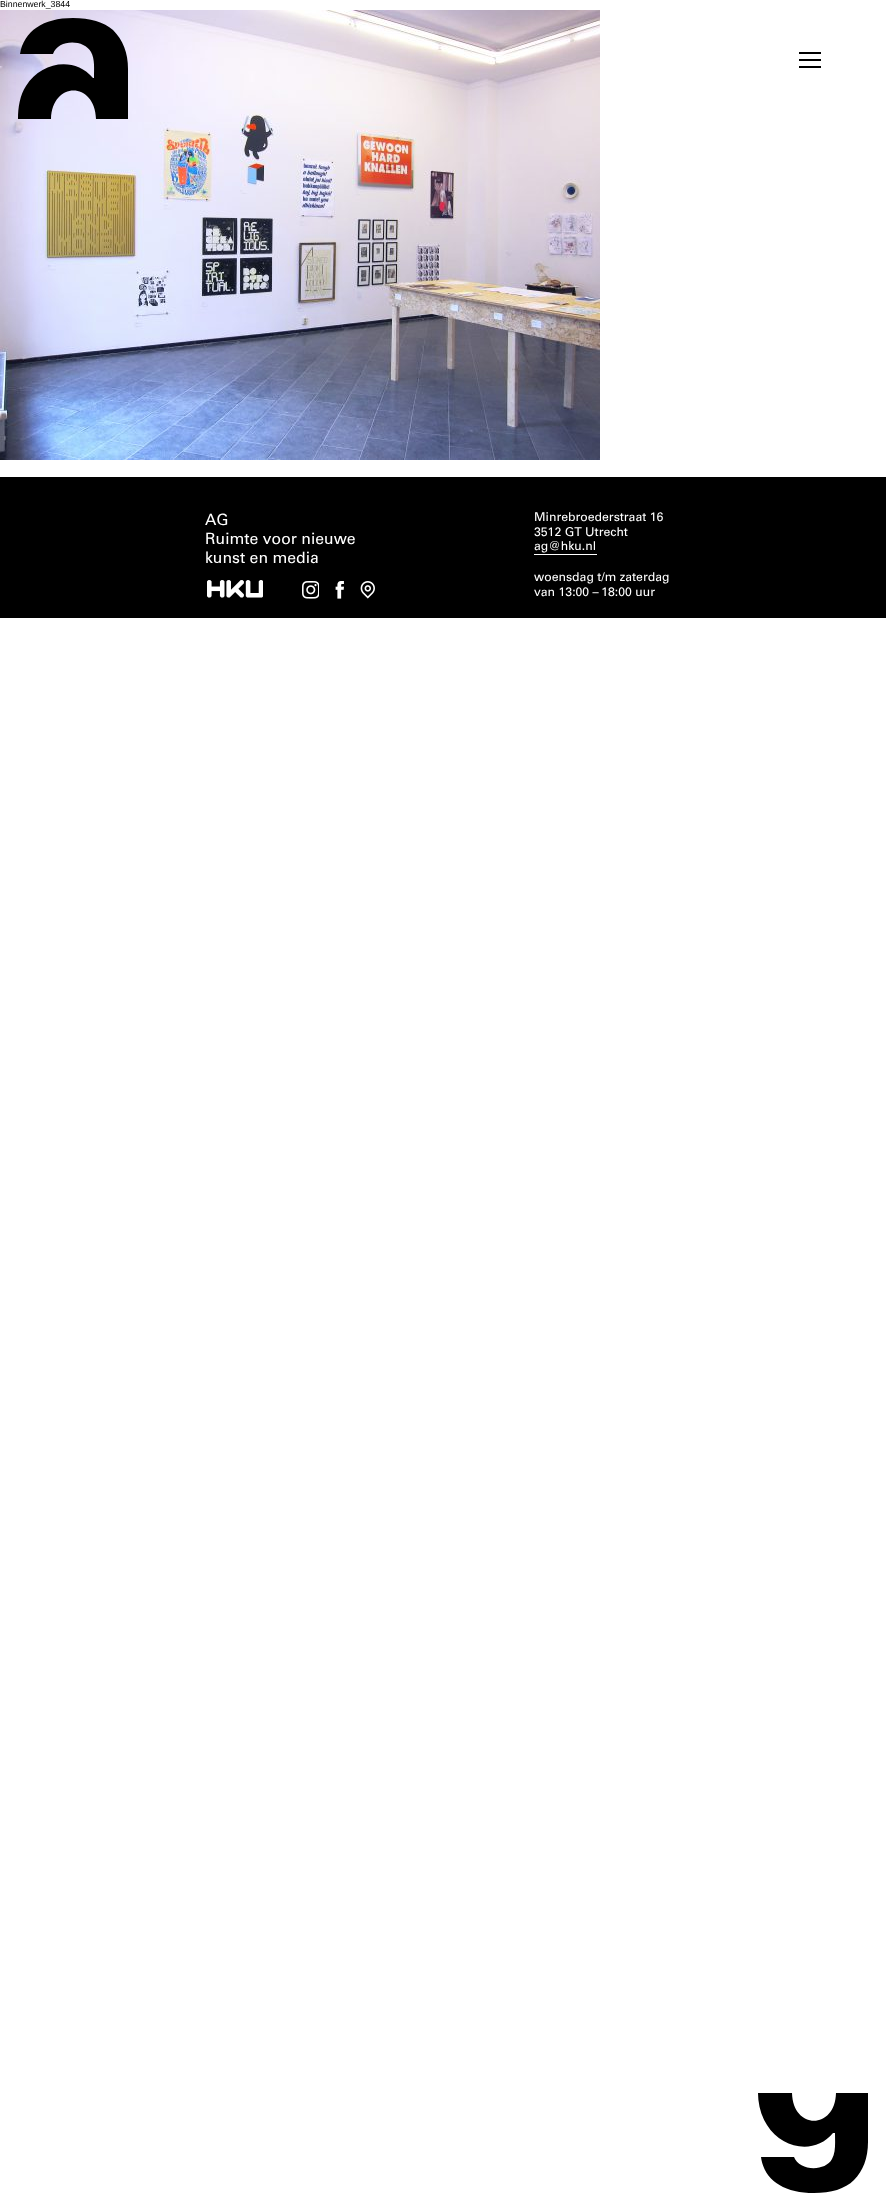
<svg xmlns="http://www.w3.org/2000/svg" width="886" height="2211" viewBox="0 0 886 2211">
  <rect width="100%" height="100%" fill="rgb(255,255,255)"/>
  <text x="0" y="7" font-family="Liberation Sans" font-size="8.75" fill="rgb(0,0,0)">Binnenwerk_3844</text>
  <image x="0" y="10" width="600" height="450" href="pic1.png"/>
  <path d="M128 119H96C95 81 52 81 51 119H18C18 107 20 95 26 86C41 62 74 56 93 78H94C94 69 95 59 91 52C84 39 58 39 53 54H20C24 31 43 18 73 18C90 18 104 22 113 30C123 40 128 53 128 69Z" fill="rgb(0,0,0)"/>
  <rect x="799" y="52" width="22" height="2" fill="rgb(0,0,0)"/>
  <rect x="799" y="59" width="22" height="2" fill="rgb(0,0,0)"/>
  <rect x="799" y="66" width="22" height="2" fill="rgb(0,0,0)"/>
  <rect x="0" y="477" width="886" height="141" fill="rgb(0,0,0)"/>
  <g font-family="'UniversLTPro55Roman'" font-size="15.75" fill="rgb(255,255,255)">
    <text>
      <tspan x="205" y="525">AG</tspan>
      <tspan x="205" y="544">Ruimte voor nieuwe</tspan>
      <tspan x="205" y="563">kunst en media</tspan>
    </text>
  </g>
  <image x="207" y="580" width="56" height="18" href="pic2.png"/>
  <g font-family="'UniversLTPro55Roman'" font-size="12.25" fill="rgb(255,255,255)">
    <text>
      <tspan x="534" y="521">Minrebroederstraat 16</tspan>
      <tspan x="534" y="536">3512 GT Utrecht</tspan>
      <tspan x="534" y="550">ag@hku.nl</tspan>
    </text>
  </g>
  <rect x="534" y="554" width="63" height="1" fill="rgb(255,255,255)"/>
  <g font-family="'UniversLTPro55Roman'" font-size="12.25" fill="rgb(255,255,255)">
    <text>
      <tspan x="534" y="581">woensdag t/m zaterdag</tspan>
      <tspan x="534" y="596">van 13:00 – 18:00 uur</tspan>
    </text>
  </g>
  <image x="302" y="581" width="17" height="18" href="pic3.png"/>
  <image x="335" y="581" width="9" height="18" href="pic4.png"/>
  <image x="360" y="581" width="15" height="18" href="pic5.png"/>
  <path d="M868 2093H836C835 2130 793 2130 792 2093H758C758 2104 761 2116 767 2125C782 2149 815 2155 833 2133H835C835 2142 836 2152 832 2159C825 2172 799 2171 794 2157H761C764 2180 784 2193 814 2193C831 2193 845 2189 854 2180C863 2171 868 2158 868 2142Z" fill="rgb(0,0,0)"/>
</svg>
